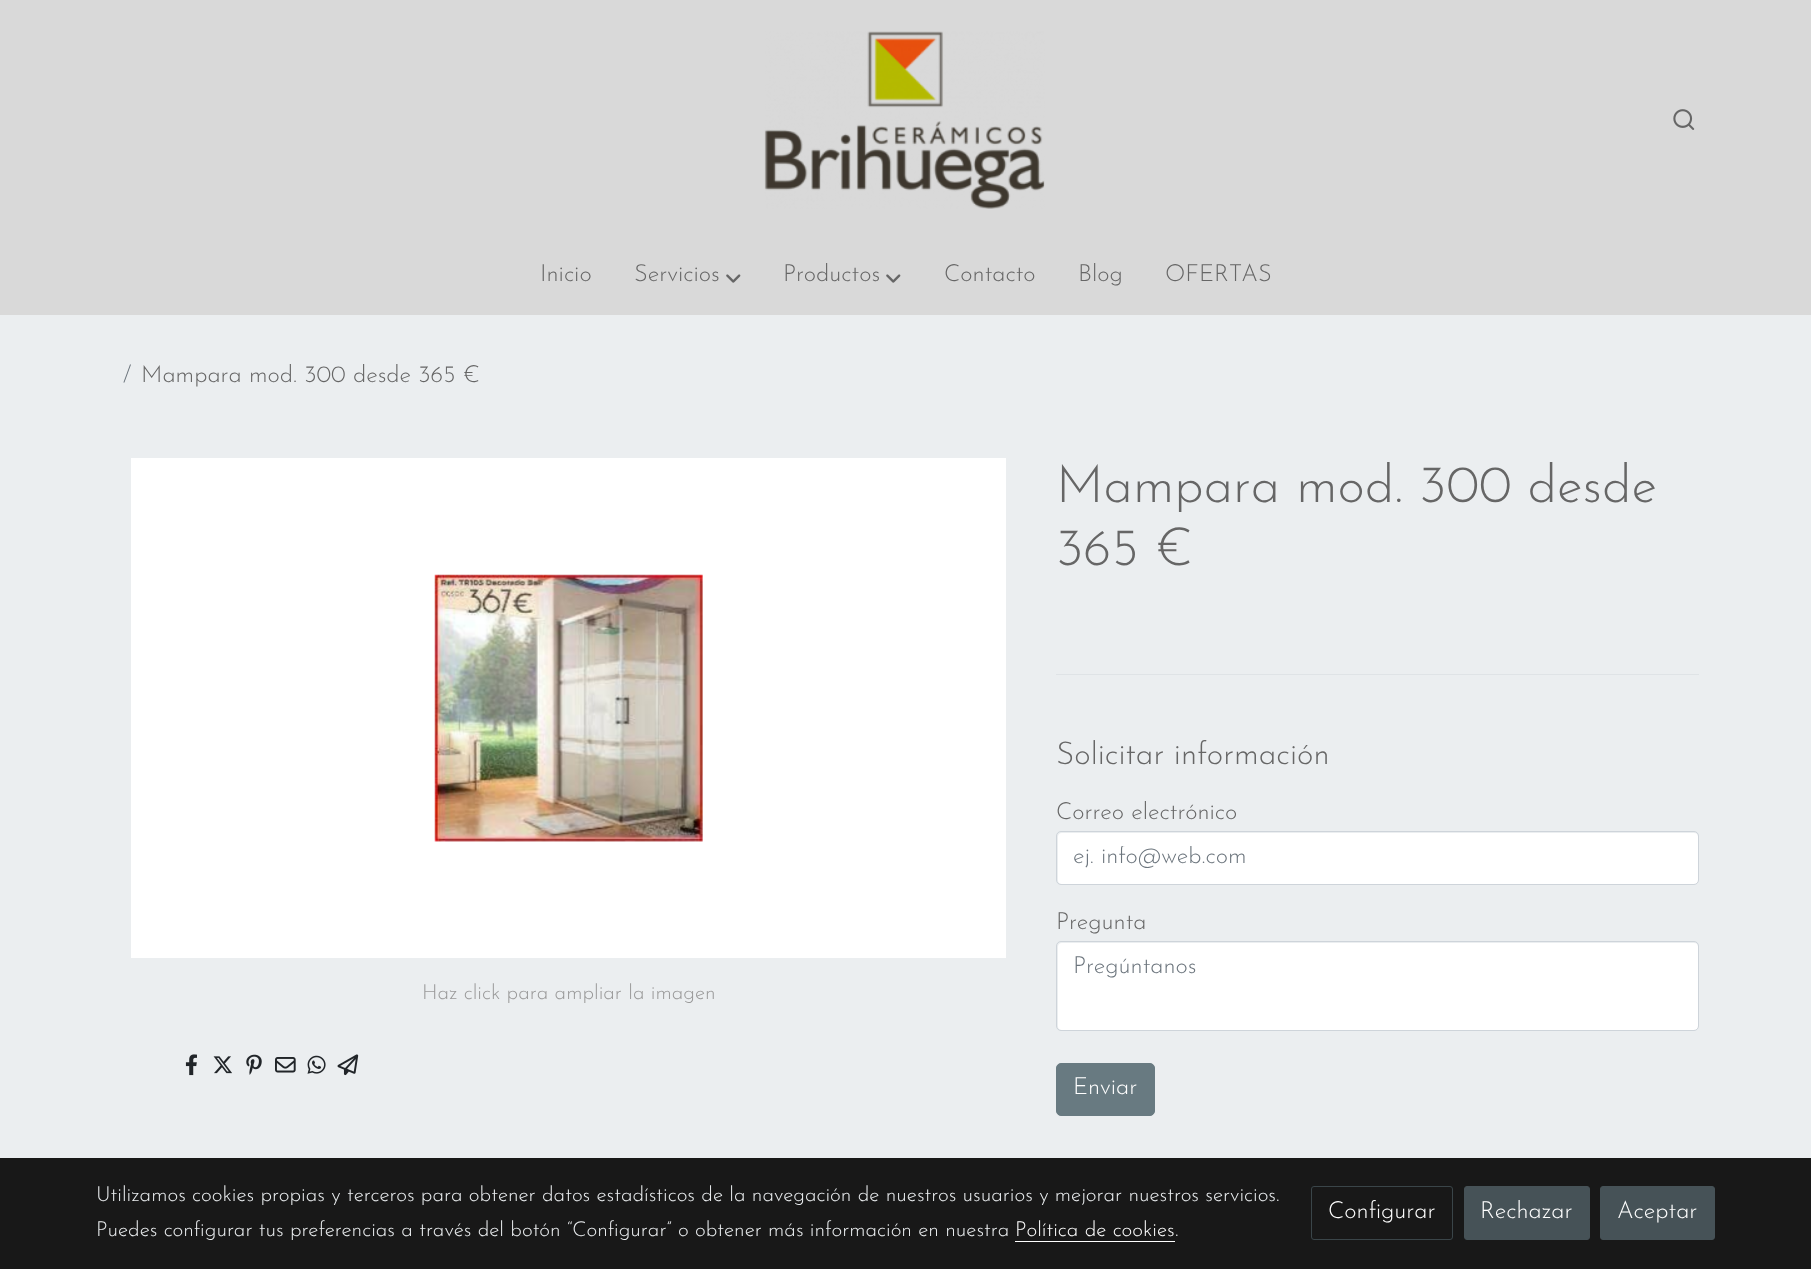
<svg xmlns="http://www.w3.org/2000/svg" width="1811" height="1269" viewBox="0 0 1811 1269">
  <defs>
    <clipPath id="clip1"><rect x="1074" y="846" width="609" height="24"/></clipPath>
  </defs>
  <rect width="100%" height="100%" fill="rgb(235,238,240)"/>
  <rect x="0" y="0" width="1811" height="315" fill="rgb(217,217,217)"/>
  <image x="764" y="31" width="281" height="178" href="pic1.png"/>
  <image x="1673" y="109" width="22" height="21" href="pic2.png"/>
  <g font-family="Josefin Sans" font-size="23.6" font-weight="300" fill="rgb(102,102,102)">
    <text x="540" y="281">Inicio</text>
    <text x="634" y="281">Servicios</text>
  </g>
  <image x="726" y="274" width="15" height="9" href="pic3.png"/>
  <text x="783" y="281" font-family="Josefin Sans" font-size="23.6" font-weight="300" fill="rgb(102,102,102)">Productos</text>
  <image x="886" y="274" width="15" height="9" href="pic3.png"/>
  <g font-family="Josefin Sans" font-size="23.6" font-weight="300" fill="rgb(102,102,102)">
    <text x="944" y="281">Contacto</text>
    <text x="1078" y="281">Blog</text>
    <text x="1165" y="281">OFERTAS</text>
  </g>
  <text x="123" y="382" font-family="Josefin Sans" font-size="23.6" font-weight="300" fill="rgb(108,117,125)">/</text>
  <text x="141" y="382" font-family="Josefin Sans" font-size="23.6" font-weight="300" fill="rgb(102,102,102)">Mampara mod. 300 desde 365 €</text>
  <rect x="131" y="458" width="875" height="500" fill="rgb(255,255,255)"/>
  <image x="434" y="574" width="269" height="268" href="pic4.png"/>
  <text x="422" y="999" font-family="Josefin Sans" font-size="20.67" font-weight="300" fill="rgb(153,153,153)">Haz click para ampliar la imagen</text>
  <image x="185" y="1054" width="12" height="22" href="pic5.png"/>
  <image x="213" y="1056" width="19" height="18" href="pic6.png"/>
  <image x="246" y="1054" width="16" height="21" href="pic7.png"/>
  <image x="275" y="1057" width="21" height="16" href="pic8.png"/>
  <image x="307" y="1055" width="19" height="19" href="pic9.png"/>
  <image x="337" y="1054" width="22" height="22" href="pic10.png"/>
  <g font-family="Josefin Sans" font-size="52.5" font-weight="300" fill="rgb(102,102,102)">
    <text>
      <tspan x="1056" y="502">Mampara mod. 300 desde</tspan>
      <tspan x="1056" y="565">365 €</tspan>
    </text>
  </g>
  <rect x="1056" y="674" width="643" height="1" fill="rgb(223,227,230)"/>
  <text x="1056" y="764" font-family="Josefin Sans" font-size="31.5" font-weight="300" fill="rgb(102,102,102)">Solicitar información</text>
  <text x="1056" y="819" font-family="Josefin Sans" font-size="23.6" font-weight="300" fill="rgb(102,102,102)">Correo electrónico</text>
  <rect x="1058" y="833" width="640" height="51" rx="4" fill="rgb(255,255,255)"/>
  <rect x="1056.5" y="831.5" width="642" height="53" rx="4.5" fill="none" stroke="rgb(206,212,218)"/>
  <g clip-path="url(#clip1)">
    <text x="1073" y="863" font-family="Josefin Sans" font-size="23.6" font-weight="300" fill="rgb(108,117,125)">ej. info@web.com</text>
  </g>
  <text x="1056" y="929" font-family="Josefin Sans" font-size="23.6" font-weight="300" fill="rgb(102,102,102)">Pregunta</text>
  <rect x="1058" y="943" width="640" height="87" rx="4" fill="rgb(255,255,255)"/>
  <rect x="1056.5" y="941.5" width="642" height="89" rx="4.5" fill="none" stroke="rgb(206,212,218)"/>
  <text x="1073" y="973" font-family="Josefin Sans" font-size="23.6" font-weight="300" fill="rgb(108,117,125)">Pregúntanos</text>
  <rect x="1056.5" y="1063.5" width="98" height="52" rx="4.5" fill="rgb(104,122,129)" stroke="rgb(104,122,129)"/>
  <text x="1073" y="1094" font-family="Josefin Sans" font-size="23.6" font-weight="300" fill="rgb(255,255,255)">Enviar</text>
  <rect x="0" y="1158" width="1811" height="111" fill="rgb(24,24,24)"/>
  <g font-family="Josefin Sans" font-size="20.67" font-weight="300" fill="rgb(235,238,240)">
    <text>
      <tspan x="96" y="1201">Utilizamos cookies propias y terceros para obtener datos estadísticos de la navegación de nuestros usuarios y mejorar nuestros servicios.</tspan>
      <tspan x="96" y="1236">Puedes configurar tus preferencias a través del botón “Configurar” o obtener más información en nuestra</tspan>
    </text>
  </g>
  <text x="1015" y="1236" font-family="Josefin Sans" font-size="20.67" font-weight="300" fill="rgb(255,255,255)">Política de cookies</text>
  <text x="1175" y="1236" font-family="Josefin Sans" font-size="20.67" font-weight="300" fill="rgb(235,238,240)">.</text>
  <rect x="1015" y="1241" width="160" height="1" fill="rgb(255,255,255)"/>
  <rect x="1311.5" y="1186.5" width="141" height="53" rx="2.5" fill="none" stroke="rgb(58,69,73)"/>
  <text x="1328" y="1218" font-family="Josefin Sans" font-size="23.6" font-weight="300" fill="rgb(255,255,255)">Configurar</text>
  <rect x="1464.5" y="1186.5" width="125" height="53" rx="2.5" fill="rgb(70,82,87)" stroke="rgb(70,82,87)"/>
  <text x="1480" y="1218" font-family="Josefin Sans" font-size="23.6" font-weight="300" fill="rgb(255,255,255)">Rechazar</text>
  <rect x="1600.5" y="1186.5" width="114" height="53" rx="2.5" fill="rgb(70,82,87)" stroke="rgb(70,82,87)"/>
  <text x="1617" y="1218" font-family="Josefin Sans" font-size="23.6" font-weight="300" fill="rgb(255,255,255)">Aceptar</text>
</svg>
